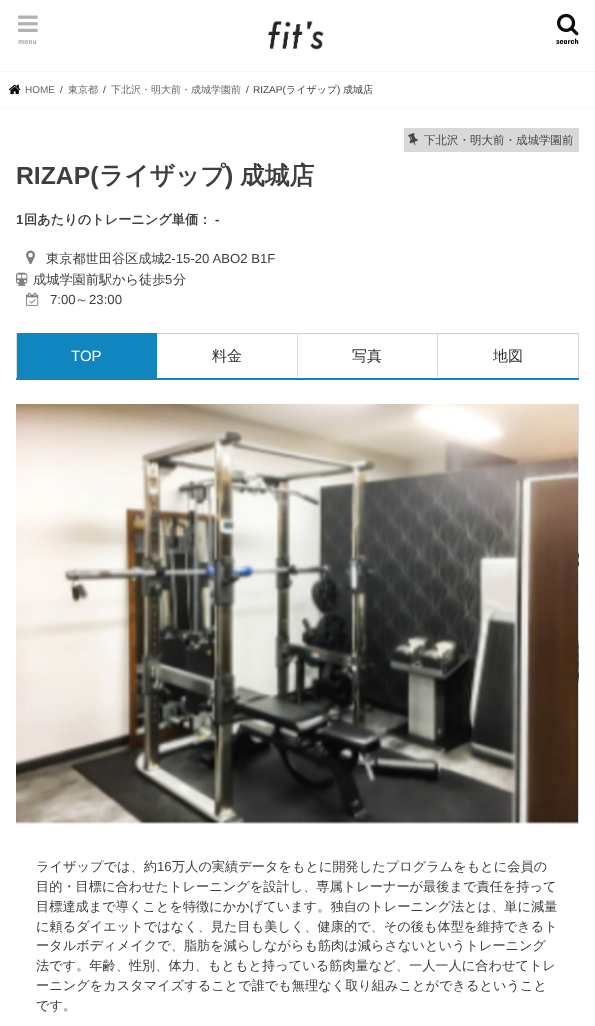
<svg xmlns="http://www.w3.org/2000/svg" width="595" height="1026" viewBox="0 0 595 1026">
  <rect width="100%" height="100%" fill="rgb(255,255,255)"/>
  <rect x="0" y="71" width="595" height="1" fill="rgb(242,244,249)"/>
  <image x="18" y="15" width="20" height="17" href="pic1.png"/>
  <text x="18" y="44" font-family="Concert One" font-size="8" fill="rgb(178,178,178)">menu</text>
  <image x="268" y="20" width="56" height="30" href="pic2.png"/>
  <image x="557" y="13" width="22" height="23" href="pic3.png"/>
  <text x="556" y="44" font-family="Concert One" font-size="8" fill="rgb(10,10,10)">search</text>
  <rect x="0" y="107" width="595" height="1" fill="rgb(247,247,247)"/>
  <image x="8" y="84" width="13" height="11" href="pic4.png"/>
  <text x="25" y="93" font-family="Liberation Sans" font-size="10" fill="rgb(102,102,102)">HOME</text>
  <text x="60" y="93" font-family="Liberation Sans" font-size="10" fill="rgb(62,62,62)">/</text>
  <text x="68" y="93" font-family="WenQuanYi Zen Hei" font-size="10" font-weight="500" fill="rgb(102,102,102)">東京都</text>
  <text x="103" y="93" font-family="Liberation Sans" font-size="10" fill="rgb(62,62,62)">/</text>
  <text x="111" y="93" font-family="WenQuanYi Zen Hei" font-size="10" font-weight="500" fill="rgb(102,102,102)">下北沢・明大前・成城学園前</text>
  <g font-family="Liberation Sans" font-size="10" fill="rgb(62,62,62)">
    <text x="246" y="93">/</text>
    <text x="253" y="93">RIZAP(</text>
  </g>
  <text x="286" y="93" font-family="WenQuanYi Zen Hei" font-size="10" font-weight="500" fill="rgb(62,62,62)">ライザップ</text>
  <text x="337" y="93" font-family="Liberation Sans" font-size="10" fill="rgb(62,62,62)">)</text>
  <text x="343" y="93" font-family="WenQuanYi Zen Hei" font-size="10" font-weight="500" fill="rgb(62,62,62)">成城店</text>
  <rect x="0" y="108" width="595" height="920" fill="rgb(221,221,221)" filter="blur(0.5px)"/>
  <rect x="0" y="108" width="595" height="918" fill="rgb(255,255,255)"/>
  <rect x="404" y="128" width="175" height="24" fill="rgb(216,216,216)"/>
  <image x="408" y="133" width="10" height="13" href="pic5.png"/>
  <text x="424" y="144" font-family="WenQuanYi Zen Hei" font-size="11.5" font-weight="500" fill="rgb(68,68,68)">下北沢・明大前・成城学園前</text>
  <text x="16" y="184" font-family="Liberation Sans" font-size="24.75" font-weight="bold" fill="rgb(62,62,62)">RIZAP(</text>
  <text x="99" y="184" font-family="WenQuanYi Zen Hei" font-size="24.75" font-weight="bold" fill="rgb(62,62,62)">ライザップ</text>
  <text x="225" y="184" font-family="Liberation Sans" font-size="24.75" font-weight="bold" fill="rgb(62,62,62)">)</text>
  <text x="240" y="184" font-family="WenQuanYi Zen Hei" font-size="24.75" font-weight="bold" fill="rgb(62,62,62)">成城店</text>
  <text x="16" y="224" font-family="Liberation Sans" font-size="13.2" font-weight="bold" fill="rgb(62,62,62)">1</text>
  <text x="24" y="224" font-family="WenQuanYi Zen Hei" font-size="13.2" font-weight="bold" fill="rgb(62,62,62)">回あたりのトレーニング単価：</text>
  <text x="215" y="224" font-family="Liberation Sans" font-size="13.2" font-weight="bold" fill="rgb(62,62,62)">-</text>
  <image x="26" y="250" width="9" height="15" href="pic6.png"/>
  <text x="46" y="263" font-family="WenQuanYi Zen Hei" font-size="13.2" font-weight="500" fill="rgb(62,62,62)">東京都世田谷区成城</text>
  <text x="164" y="263" font-family="Liberation Sans" font-size="13.2" fill="rgb(62,62,62)">2-15-20 ABO2 B1F</text>
  <image x="16" y="272" width="12" height="14" href="pic7.png"/>
  <text x="33" y="284" font-family="WenQuanYi Zen Hei" font-size="13.2" font-weight="500" fill="rgb(62,62,62)">成城学園前駅から徒歩</text>
  <text x="165" y="284" font-family="Liberation Sans" font-size="13.2" fill="rgb(62,62,62)">5</text>
  <text x="173" y="284" font-family="WenQuanYi Zen Hei" font-size="13.2" font-weight="500" fill="rgb(62,62,62)">分</text>
  <image x="26" y="292" width="13" height="14" href="pic8.png"/>
  <text x="50" y="304" font-family="Liberation Sans" font-size="13.2" fill="rgb(62,62,62)">7:00</text>
  <text x="75" y="304" font-family="WenQuanYi Zen Hei" font-size="13.2" font-weight="500" fill="rgb(62,62,62)">～</text>
  <text x="89" y="304" font-family="Liberation Sans" font-size="13.2" fill="rgb(62,62,62)">23:00</text>
  <rect x="16" y="378" width="563" height="2" fill="rgb(17,133,191)"/>
  <rect x="17" y="333" width="140" height="45" fill="rgb(17,133,191)"/>
  <rect x="16" y="333" width="1" height="45" fill="rgb(219,219,219)"/>
  <text x="71" y="361" font-family="Liberation Sans" font-size="15" fill="rgb(255,255,255)">TOP</text>
  <rect x="157" y="333" width="422" height="1" fill="rgb(204,204,204)"/>
  <rect x="297" y="333" width="1" height="45" fill="rgb(219,219,219)"/>
  <text x="212" y="361" font-family="WenQuanYi Zen Hei" font-size="15" font-weight="500" fill="rgb(51,51,51)">料金</text>
  <rect x="437" y="333" width="1" height="45" fill="rgb(219,219,219)"/>
  <text x="352" y="361" font-family="WenQuanYi Zen Hei" font-size="15" font-weight="500" fill="rgb(51,51,51)">写真</text>
  <rect x="578" y="333" width="1" height="45" fill="rgb(219,219,219)"/>
  <text x="493" y="361" font-family="WenQuanYi Zen Hei" font-size="15" font-weight="500" fill="rgb(51,51,51)">地図</text>
  <image x="16" y="404" width="562" height="420" href="pic9.png"/>
  <image x="578" y="404" width="1" height="420" href="pic10.png"/>
  <text x="36" y="871" font-family="WenQuanYi Zen Hei" font-size="13.2" font-weight="500" fill="rgb(62,62,62)">ライザップでは、約</text>
  <text x="157" y="871" font-family="Liberation Sans" font-size="13.2" fill="rgb(62,62,62)">16</text>
  <g font-family="WenQuanYi Zen Hei" font-size="13.2" font-weight="500" fill="rgb(62,62,62)">
    <text x="172" y="871">万人の実績データをもとに開発したプログラムをもとに会員の</text>
    <text>
      <tspan x="36" y="891">目的・目標に合わせたトレーニングを設計し、専属トレーナーが最後まで責任を持って</tspan>
      <tspan x="36" y="911">目標達成まで導くことを特徴にかかげています。独自のトレーニング法とは、単に減量</tspan>
      <tspan x="36" y="931">に頼るダイエットではなく、見た目も美しく、健康的で、その後も体型を維持できるト</tspan>
      <tspan x="36" y="950">ータルボディメイクで、脂肪を減らしながらも筋肉は減らさないというトレーニング</tspan>
      <tspan x="36" y="970">法です。年齢、性別、体力、もともと持っている筋肉量など、一人一人に合わせてトレ</tspan>
      <tspan x="36" y="990">ーニングをカスタマイズすることで誰でも無理なく取り組みことができるということ</tspan>
      <tspan x="36" y="1010">です。</tspan>
    </text>
  </g>
</svg>
